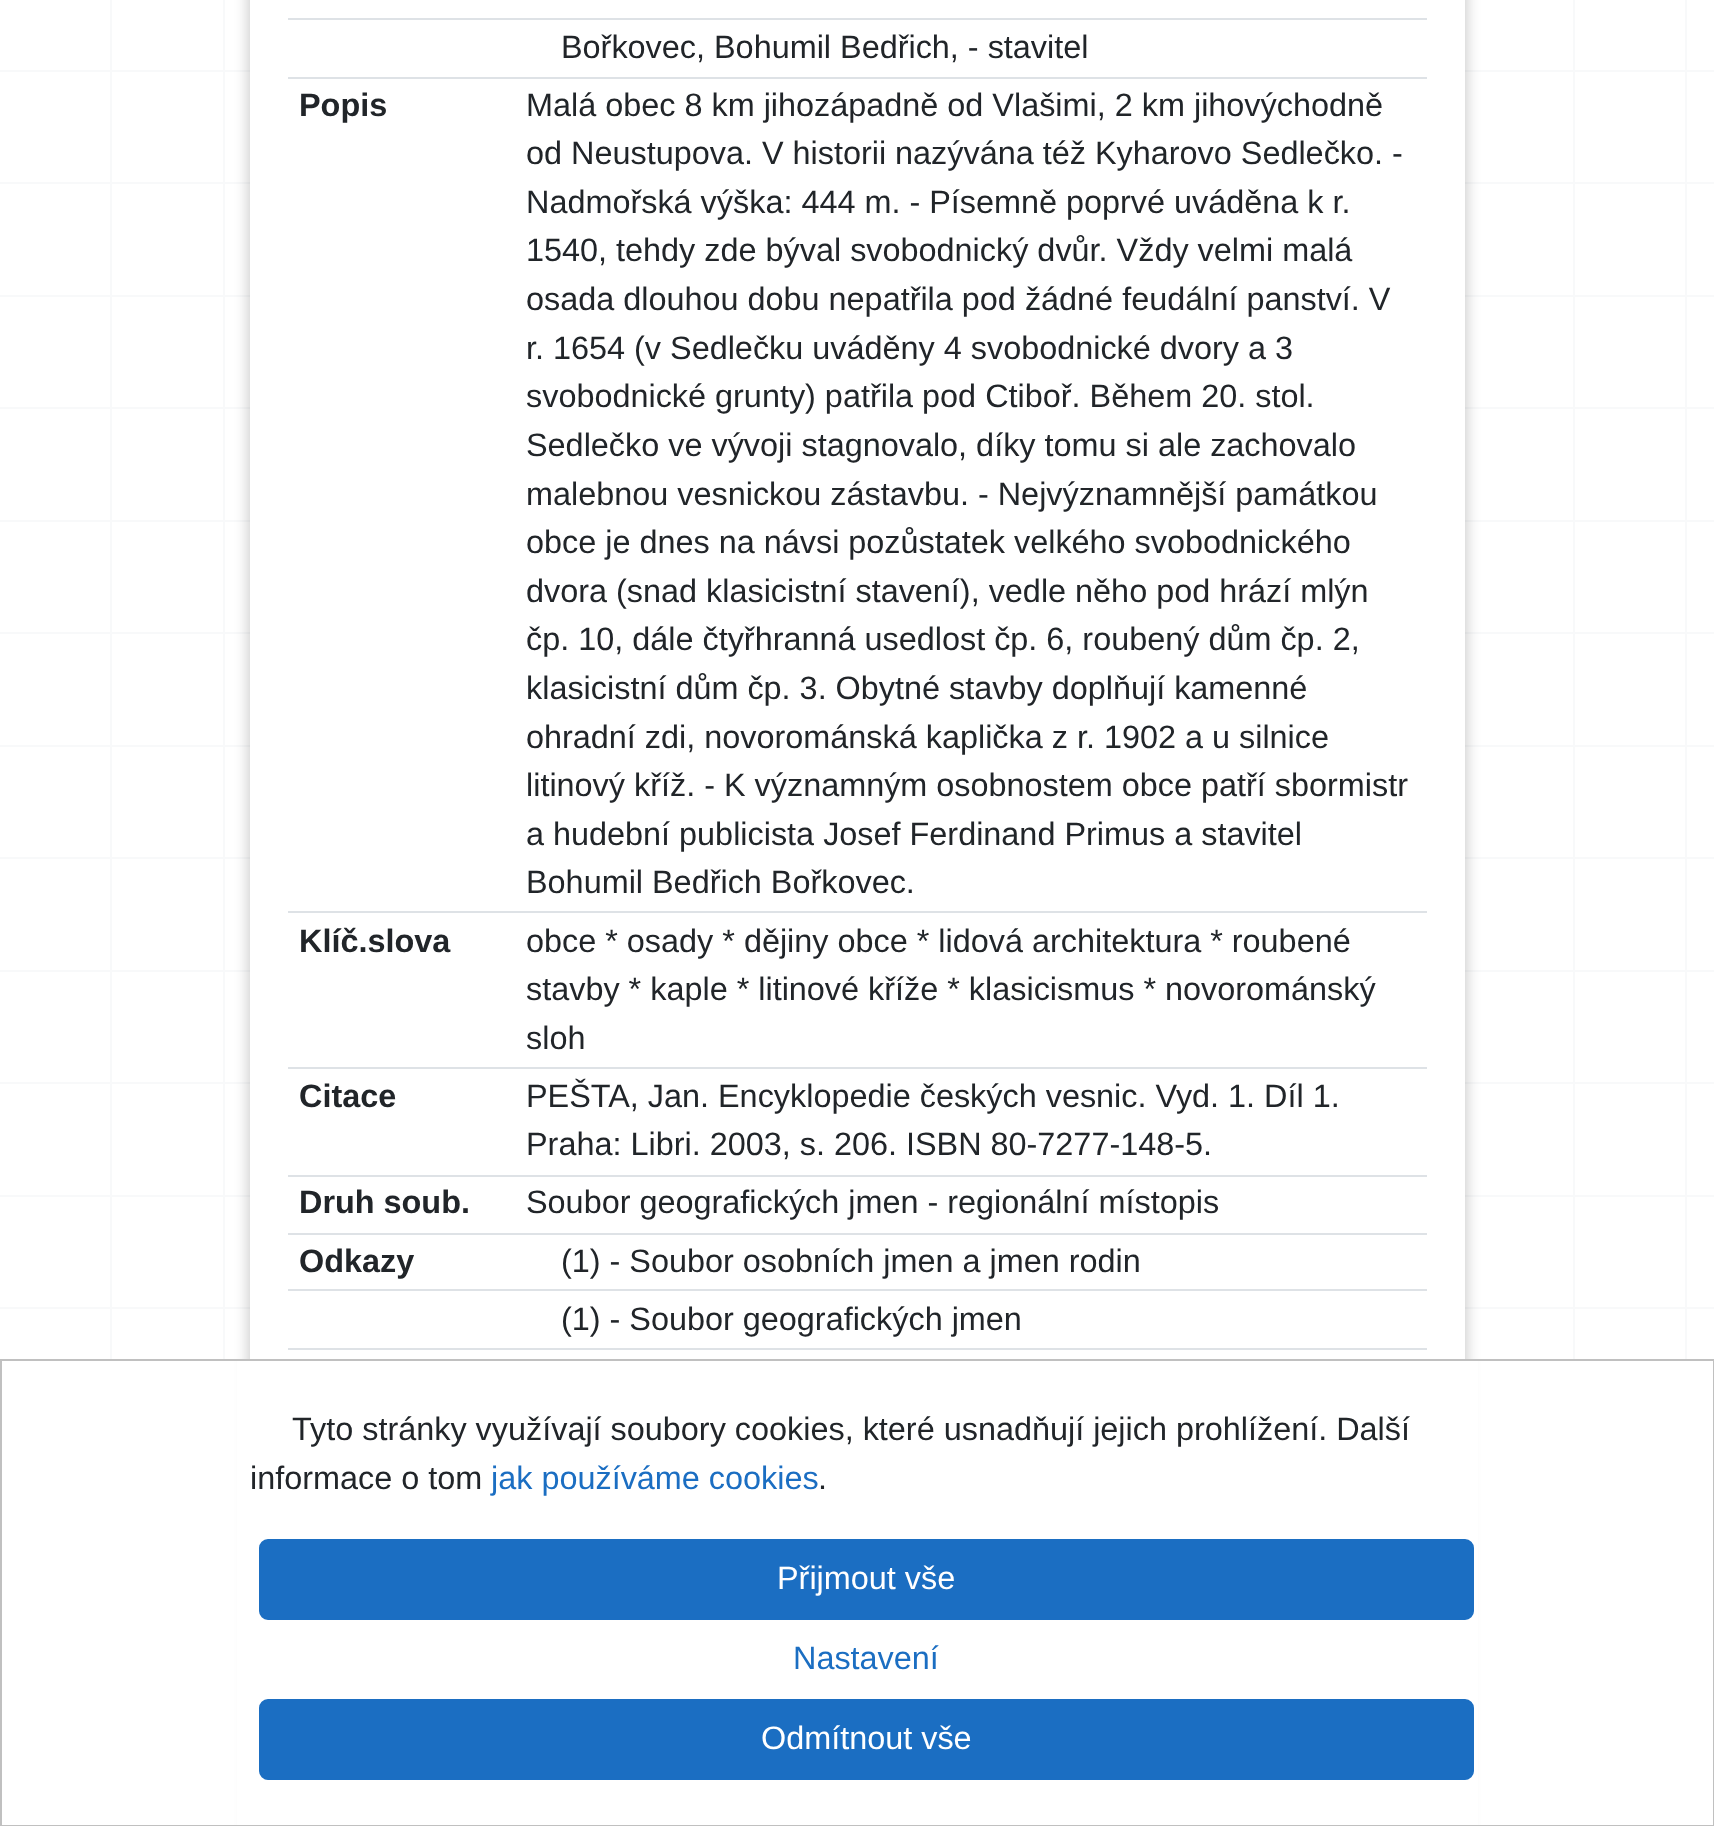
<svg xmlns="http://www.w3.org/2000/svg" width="1714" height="1826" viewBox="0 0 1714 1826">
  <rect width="100%" height="100%" fill="rgb(255,255,255)"/>
  <rect x="110" y="0" width="2" height="1359" fill="rgb(248,249,250)"/>
  <rect x="223" y="0" width="2" height="1359" fill="rgb(248,249,250)"/>
  <rect x="1573" y="0" width="2" height="1359" fill="rgb(248,249,250)"/>
  <rect x="1685" y="0" width="2" height="1359" fill="rgb(248,249,250)"/>
  <rect x="0" y="70" width="1714" height="2" fill="rgb(248,249,250)"/>
  <rect x="0" y="182" width="1714" height="2" fill="rgb(248,249,250)"/>
  <rect x="0" y="295" width="1714" height="2" fill="rgb(248,249,250)"/>
  <rect x="0" y="407" width="1714" height="2" fill="rgb(248,249,250)"/>
  <rect x="0" y="520" width="1714" height="2" fill="rgb(248,249,250)"/>
  <rect x="0" y="632" width="1714" height="2" fill="rgb(248,249,250)"/>
  <rect x="0" y="745" width="1714" height="2" fill="rgb(248,249,250)"/>
  <rect x="0" y="857" width="1714" height="2" fill="rgb(248,249,250)"/>
  <rect x="0" y="970" width="1714" height="2" fill="rgb(248,249,250)"/>
  <rect x="0" y="1082" width="1714" height="2" fill="rgb(248,249,250)"/>
  <rect x="0" y="1195" width="1714" height="2" fill="rgb(248,249,250)"/>
  <rect x="0" y="1307" width="1714" height="2" fill="rgb(248,249,250)"/>
  <rect x="248" y="-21" width="1219" height="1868" fill="rgba(0,0,0,0.2)" filter="blur(7px)"/>
  <rect x="250" y="0" width="1215" height="1359" fill="rgb(255,255,255)"/>
  <rect x="288" y="18" width="1139" height="2" fill="rgb(222,226,230)"/>
  <text x="561" y="58" font-family="Liberation Sans" font-size="32.4" fill="rgb(33,37,41)">Bořkovec, Bohumil Bedřich, - stavitel</text>
  <text x="299" y="116" font-family="Liberation Sans" font-size="32.4" font-weight="bold" fill="rgb(33,37,41)">Popis</text>
  <rect x="288" y="77" width="1139" height="2" fill="rgb(222,226,230)"/>
  <g font-family="Liberation Sans" font-size="32.4" fill="rgb(33,37,41)">
    <text>
      <tspan x="526" y="116">Malá obec 8 km jihozápadně od Vlašimi, 2 km jihovýchodně</tspan>
      <tspan x="526" y="164">od Neustupova. V historii nazývána též Kyharovo Sedlečko. -</tspan>
      <tspan x="526" y="213">Nadmořská výška: 444 m. - Písemně poprvé uváděna k r.</tspan>
      <tspan x="526" y="261">1540, tehdy zde býval svobodnický dvůr. Vždy velmi malá</tspan>
      <tspan x="526" y="310">osada dlouhou dobu nepatřila pod žádné feudální panství. V</tspan>
      <tspan x="526" y="359">r. 1654 (v Sedlečku uváděny 4 svobodnické dvory a 3</tspan>
      <tspan x="526" y="407">svobodnické grunty) patřila pod Ctiboř. Během 20. stol.</tspan>
      <tspan x="526" y="456">Sedlečko ve vývoji stagnovalo, díky tomu si ale zachovalo</tspan>
      <tspan x="526" y="505">malebnou vesnickou zástavbu. - Nejvýznamnější památkou</tspan>
      <tspan x="526" y="553">obce je dnes na návsi pozůstatek velkého svobodnického</tspan>
      <tspan x="526" y="602">dvora (snad klasicistní stavení), vedle něho pod hrází mlýn</tspan>
      <tspan x="526" y="650">čp. 10, dále čtyřhranná usedlost čp. 6, roubený dům čp. 2,</tspan>
      <tspan x="526" y="699">klasicistní dům čp. 3. Obytné stavby doplňují kamenné</tspan>
      <tspan x="526" y="748">ohradní zdi, novorománská kaplička z r. 1902 a u silnice</tspan>
      <tspan x="526" y="796">litinový kříž. - K významným osobnostem obce patří sbormistr</tspan>
      <tspan x="526" y="845">a hudební publicista Josef Ferdinand Primus a stavitel</tspan>
      <tspan x="526" y="893">Bohumil Bedřich Bořkovec.</tspan>
    </text>
  </g>
  <text x="299" y="952" font-family="Liberation Sans" font-size="32.4" font-weight="bold" fill="rgb(33,37,41)">Klíč.slova</text>
  <rect x="288" y="911" width="1139" height="2" fill="rgb(222,226,230)"/>
  <g font-family="Liberation Sans" font-size="32.4" fill="rgb(33,37,41)">
    <text>
      <tspan x="526" y="952">obce * osady * dějiny obce * lidová architektura * roubené</tspan>
      <tspan x="526" y="1000">stavby * kaple * litinové kříže * klasicismus * novorománský</tspan>
      <tspan x="526" y="1049">sloh</tspan>
    </text>
  </g>
  <text x="299" y="1107" font-family="Liberation Sans" font-size="32.4" font-weight="bold" fill="rgb(33,37,41)">Citace</text>
  <rect x="288" y="1067" width="1139" height="2" fill="rgb(222,226,230)"/>
  <g font-family="Liberation Sans" font-size="32.4" fill="rgb(33,37,41)">
    <text>
      <tspan x="526" y="1107">PEŠTA, Jan. Encyklopedie českých vesnic. Vyd. 1. Díl 1.</tspan>
      <tspan x="526" y="1155">Praha: Libri. 2003, s. 206. ISBN 80-7277-148-5.</tspan>
    </text>
  </g>
  <text x="299" y="1213" font-family="Liberation Sans" font-size="32.4" font-weight="bold" fill="rgb(33,37,41)">Druh soub.</text>
  <rect x="288" y="1175" width="1139" height="2" fill="rgb(222,226,230)"/>
  <text x="526" y="1213" font-family="Liberation Sans" font-size="32.4" fill="rgb(33,37,41)">Soubor geografických jmen - regionální místopis</text>
  <text x="299" y="1272" font-family="Liberation Sans" font-size="32.4" font-weight="bold" fill="rgb(33,37,41)">Odkazy</text>
  <rect x="288" y="1233" width="1139" height="2" fill="rgb(222,226,230)"/>
  <text x="561" y="1272" font-family="Liberation Sans" font-size="32.4" fill="rgb(33,37,41)">(1) - Soubor osobních jmen a jmen rodin</text>
  <rect x="288" y="1289" width="1139" height="2" fill="rgb(222,226,230)"/>
  <text x="561" y="1330" font-family="Liberation Sans" font-size="32.4" fill="rgb(33,37,41)">(1) - Soubor geografických jmen</text>
  <rect x="288" y="1348" width="1139" height="2" fill="rgb(222,226,230)"/>
  <rect x="237" y="1361" width="1241" height="464" fill="rgb(255,255,255)"/>
  <rect x="1" y="1360" width="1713" height="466" fill="none" stroke="rgb(192,192,192)" stroke-width="2"/>
  <g font-family="Liberation Sans" font-size="32.4" fill="rgb(33,37,41)">
    <text x="292" y="1440">Tyto stránky využívají soubory cookies, které usnadňují jejich prohlížení. Další</text>
    <text x="250" y="1489">informace o tom</text>
  </g>
  <text x="491" y="1489" font-family="Liberation Sans" font-size="32.4" fill="rgb(27,110,194)">jak používáme cookies</text>
  <text x="818" y="1489" font-family="Liberation Sans" font-size="32.4" fill="rgb(33,37,41)">.</text>
  <rect x="260" y="1540" width="1213" height="79" rx="8" fill="rgb(27,110,194)" stroke="rgb(27,110,194)" stroke-width="2"/>
  <text x="777" y="1589" font-family="Liberation Sans" font-size="32.4" fill="rgb(255,255,255)">Přijmout vše</text>
  <text x="793" y="1669" font-family="Liberation Sans" font-size="32.4" fill="rgb(27,110,194)">Nastavení</text>
  <rect x="260" y="1700" width="1213" height="79" rx="8" fill="rgb(27,110,194)" stroke="rgb(27,110,194)" stroke-width="2"/>
  <text x="761" y="1749" font-family="Liberation Sans" font-size="32.4" fill="rgb(255,255,255)">Odmítnout vše</text>
</svg>
